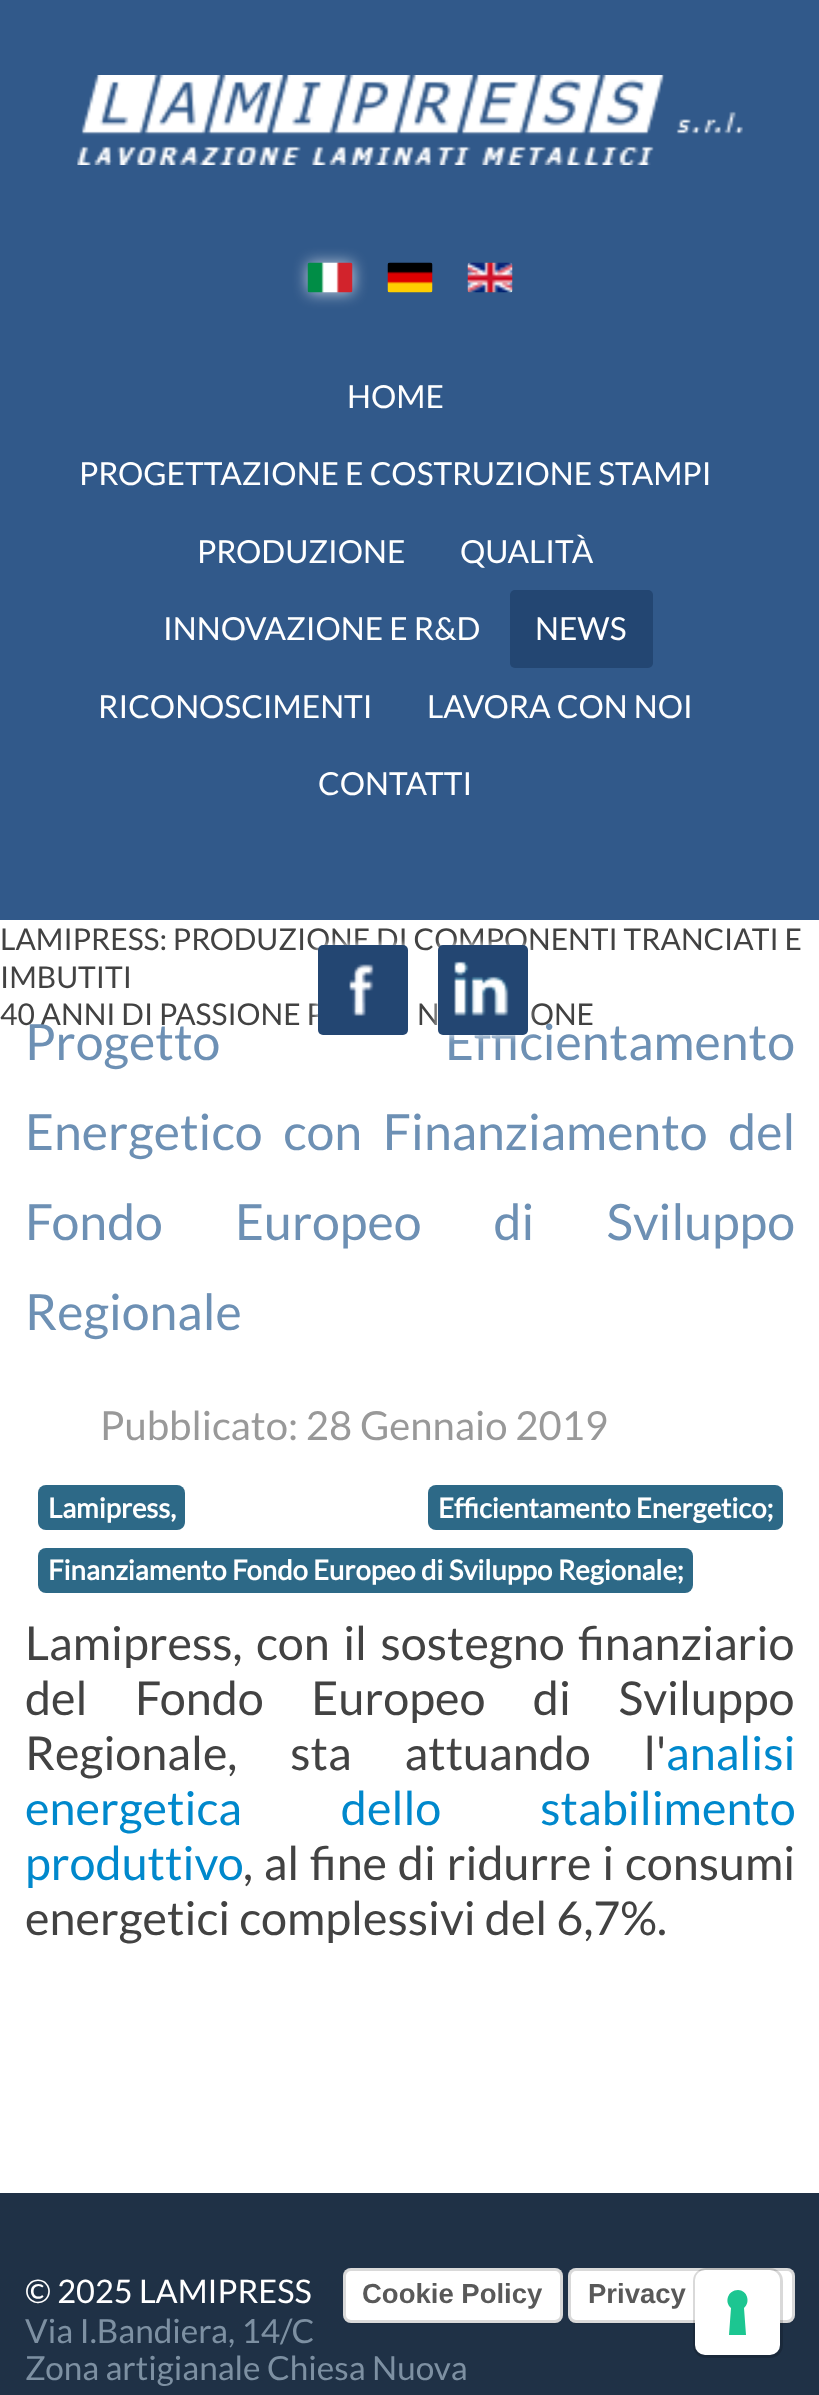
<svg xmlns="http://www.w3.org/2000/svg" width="819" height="2395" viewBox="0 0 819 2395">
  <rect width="100%" height="100%" fill="rgb(255,255,255)"/>
  <rect x="0" y="0" width="819" height="920" fill="rgb(49,89,138)"/>
  <image x="77" y="75" width="666" height="90" href="pic1.png"/>
  <rect x="308" y="263" width="45" height="30" rx="2.5" fill="rgba(255,255,255,0.7)" filter="blur(7.5px)"/>
  <image x="307" y="262" width="46" height="31" href="pic2.png"/>
  <image x="387" y="262" width="46" height="31" href="pic3.png"/>
  <image x="467" y="262" width="46" height="31" href="pic4.png"/>
  <g font-family="Lato" font-size="31.7" fill="rgb(255,255,255)">
    <text x="347" y="408">HOME</text>
    <text x="79" y="485">PROGETTAZIONE E COSTRUZIONE STAMPI</text>
    <text x="197" y="563">PRODUZIONE</text>
    <text x="460" y="563">QUALITÀ</text>
    <text x="163" y="640">INNOVAZIONE E R&amp;D</text>
  </g>
  <rect x="510" y="590" width="143" height="78" rx="5" fill="rgb(35,70,114)"/>
  <g font-family="Lato" font-size="31.7" fill="rgb(255,255,255)">
    <text x="535" y="640">NEWS</text>
    <text x="98" y="718">RICONOSCIMENTI</text>
    <text x="427" y="718">LAVORA CON NOI</text>
    <text x="318" y="795">CONTATTI</text>
  </g>
  <g font-family="Lato" font-size="30" fill="rgb(66,66,66)">
    <text>
      <tspan x="0" y="950">LAMIPRESS: PRODUZIONE DI COMPONENTI TRANCIATI E</tspan>
      <tspan x="0" y="988">IMBUTITI</tspan>
      <tspan x="0" y="1025">40 ANNI DI PASSIONE P</tspan>
    </text>
    <text x="417" y="1025">N</text>
    <text x="530" y="1025">ONE</text>
  </g>
  <rect x="318" y="945" width="90" height="90" rx="5" fill="rgb(255,255,255)" filter="blur(4px)"/>
  <text x="25" y="1060" word-spacing="215" font-family="Lato" font-size="50" fill="rgb(109,144,180)">Progetto Efficientamento</text>
  <rect x="318" y="945" width="90" height="90" rx="5" fill="rgb(35,70,114)"/>
  <image x="349" y="964" width="25" height="52" href="pic5.png"/>
  <rect x="438" y="945" width="90" height="90" rx="5" fill="rgb(255,255,255)" filter="blur(4px)"/>
  <rect x="438" y="945" width="90" height="90" rx="5" fill="rgb(35,70,114)"/>
  <image x="454" y="961" width="55" height="55" href="pic6.png"/>
  <g font-family="Lato" font-size="50" fill="rgb(109,144,180)">
    <text>
      <tspan x="25" y="1150" word-spacing="11">Energetico con Finanziamento del</tspan>
      <tspan x="25" y="1240" word-spacing="62.5">Fondo Europeo di Sviluppo</tspan>
      <tspan x="25" y="1330">Regionale</tspan>
    </text>
  </g>
  <text x="100" y="1440" font-family="Lato" font-size="40" fill="rgb(153,153,153)">Pubblicato: 28 Gennaio 2019</text>
  <rect x="38" y="1485" width="147" height="45" rx="8" fill="rgb(45,105,135)"/>
  <text x="48" y="1518" font-family="Lato" font-size="27.5" font-weight="bold" fill="rgb(255,255,255)">Lamipress,</text>
  <rect x="428" y="1485" width="355" height="45" rx="8" fill="rgb(45,105,135)"/>
  <text x="438" y="1518" font-family="Lato" font-size="27.5" font-weight="bold" fill="rgb(255,255,255)">Efficientamento Energetico;</text>
  <rect x="38" y="1548" width="655" height="45" rx="8" fill="rgb(45,105,135)"/>
  <text x="48" y="1580" font-family="Lato" font-size="27.5" font-weight="bold" fill="rgb(255,255,255)">Finanziamento Fondo Europeo di Sviluppo Regionale;</text>
  <g font-family="Lato" font-size="46.7" fill="rgb(66,66,66)">
    <text>
      <tspan x="25" y="1660" word-spacing="4.5">Lamipress, con il sostegno finanziario</tspan>
      <tspan x="25" y="1715" word-spacing="38.5">del Fondo Europeo di Sviluppo</tspan>
      <tspan x="25" y="1770" word-spacing="44">Regionale, sta attuando l'</tspan>
    </text>
  </g>
  <g font-family="Lato" font-size="46.7" fill="rgb(0,136,204)">
    <text x="666" y="1770">analisi</text>
    <text>
      <tspan x="25" y="1825" word-spacing="90">energetica dello stabilimento</tspan>
      <tspan x="25" y="1880">produttivo</tspan>
    </text>
  </g>
  <g font-family="Lato" font-size="46.7" fill="rgb(66,66,66)">
    <text x="243" y="1880" word-spacing="1.75">, al fine di ridurre i consumi</text>
    <text x="25" y="1935">energetici complessivi del 6,7%.</text>
  </g>
  <rect x="0" y="2193" width="819" height="202" fill="rgb(31,49,70)"/>
  <text x="25" y="2303" font-family="Lato" font-size="32.5" fill="rgb(255,255,255)">© 2025 LAMIPRESS</text>
  <g font-family="Lato" font-size="33.3" fill="rgb(125,144,162)">
    <text>
      <tspan x="25" y="2343">Via I.Bandiera, 14/C</tspan>
      <tspan x="25" y="2380">Zona artigianale Chiesa Nuova</tspan>
    </text>
  </g>
  <rect x="345" y="2273" width="215" height="50" rx="5" fill="rgba(0,0,0,0.15)" filter="blur(1px)"/>
  <rect x="343" y="2268" width="220" height="55" rx="8" fill="rgb(255,255,255)"/>
  <rect x="344.5" y="2269.5" width="217" height="52" rx="6.5" fill="none" stroke="rgba(0,0,0,0.15)" stroke-width="3"/>
  <text x="362" y="2303" font-family="Liberation Sans" font-size="27.5" font-weight="bold" fill="rgb(89,89,89)">Cookie Policy</text>
  <rect x="570" y="2273" width="223" height="50" rx="5" fill="rgba(0,0,0,0.15)" filter="blur(1px)"/>
  <rect x="568" y="2268" width="227" height="55" rx="8" fill="rgb(255,255,255)"/>
  <rect x="569.5" y="2269.5" width="224" height="52" rx="6.5" fill="none" stroke="rgba(0,0,0,0.15)" stroke-width="3"/>
  <text x="588" y="2303" font-family="Liberation Sans" font-size="27.5" font-weight="bold" fill="rgb(89,89,89)">Privacy</text>
  <rect x="694.5" y="2269.5" width="87" height="87" rx="11.5" fill="none" stroke="rgba(0,0,0,0.15)" stroke-width="3"/>
  <rect x="695" y="2270" width="85" height="85" rx="10" fill="rgb(255,255,255)"/>
  <path d="M738 2290C747 2290 751 2302 744 2308L746 2335H729L731 2308C724 2302 728 2290 738 2290Z" fill="rgb(28,198,145)" fill-rule="evenodd"/>
</svg>
